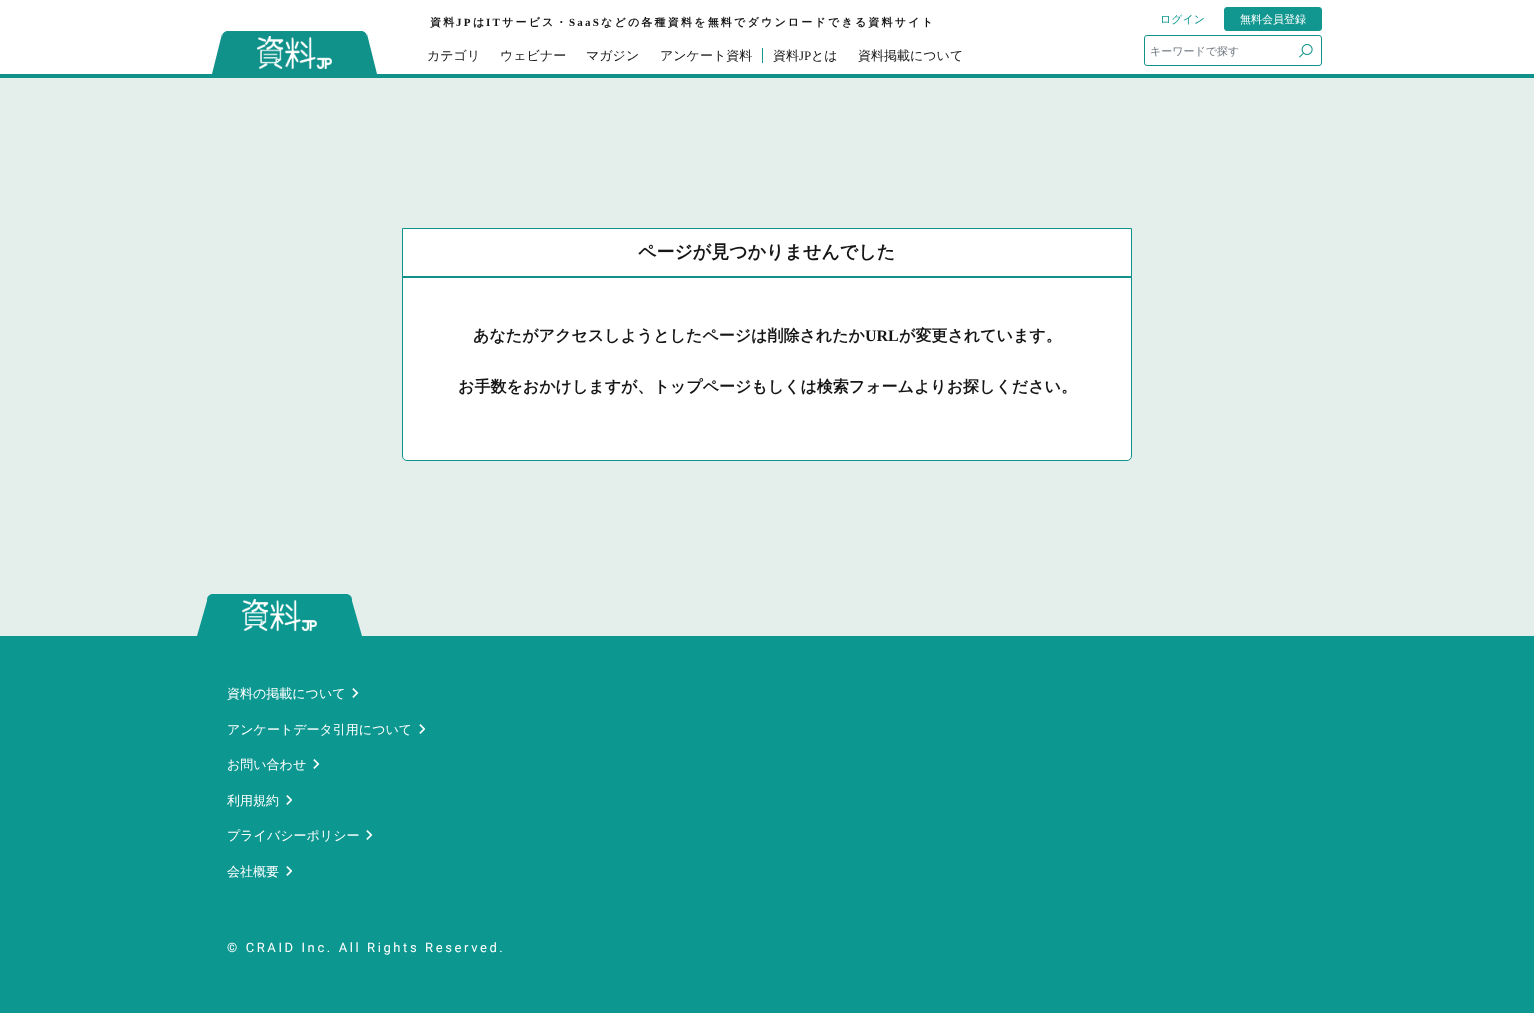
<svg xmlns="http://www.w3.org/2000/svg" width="1534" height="1013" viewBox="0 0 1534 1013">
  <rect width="100%" height="100%" fill="rgb(255,255,255)"/>
  <rect x="0" y="74" width="1534" height="4" fill="rgb(16,145,138)"/>
  <path d="M228 31H361C364.5 31 367 33.5 367 37V74H222V37C222 33.5 224.5 31 228 31Z" fill="rgb(16,145,138)"/>
  <path d="M222 74H212L222 34Z" fill="rgb(16,145,138)"/>
  <image x="257" y="36" width="75" height="33" href="pic1.png"/>
  <path d="M377 74H367V34Z" fill="rgb(16,145,138)"/>
  <text x="430" y="26" font-family="WenQuanYi Zen Hei" font-size="11" font-weight="bold" letter-spacing="2.2" fill="rgb(21,21,21)">資料</text>
  <text x="456" y="26" font-family="Liberation Serif" font-size="11" font-weight="bold" letter-spacing="2.2" fill="rgb(21,21,21)">JP</text>
  <text x="473" y="26" font-family="WenQuanYi Zen Hei" font-size="11" font-weight="bold" letter-spacing="2.2" fill="rgb(21,21,21)">は</text>
  <text x="486" y="26" font-family="Liberation Serif" font-size="11" font-weight="bold" letter-spacing="2.2" fill="rgb(21,21,21)">IT</text>
  <text x="502" y="26" font-family="WenQuanYi Zen Hei" font-size="11" font-weight="bold" letter-spacing="2.2" fill="rgb(21,21,21)">サービス・</text>
  <text x="569" y="26" font-family="Liberation Serif" font-size="11" font-weight="bold" letter-spacing="2.2" fill="rgb(21,21,21)">SaaS</text>
  <text x="601" y="26" font-family="WenQuanYi Zen Hei" font-size="11" font-weight="bold" letter-spacing="2.2" fill="rgb(21,21,21)">などの各種資料を無料でダウンロードできる資料サイト</text>
  <g font-family="WenQuanYi Zen Hei" font-size="13" font-weight="500" fill="rgb(21,21,21)">
    <text x="427" y="60">カテゴリ</text>
    <text x="500" y="60">ウェビナー</text>
    <text x="586" y="60">マガジン</text>
    <text x="660" y="60">アンケート資料</text>
  </g>
  <rect x="762" y="48" width="1" height="15" fill="rgb(17,151,144)"/>
  <text x="773" y="60" font-family="WenQuanYi Zen Hei" font-size="13" font-weight="500" fill="rgb(21,21,21)">資料</text>
  <text x="799" y="60" font-family="Liberation Serif" font-size="13" fill="rgb(21,21,21)">JP</text>
  <g font-family="WenQuanYi Zen Hei" font-size="13" font-weight="500" fill="rgb(21,21,21)">
    <text x="811" y="60">とは</text>
    <text x="858" y="60">資料掲載について</text>
  </g>
  <text x="1160" y="23" font-family="WenQuanYi Zen Hei" font-size="11" font-weight="500" fill="rgb(17,151,144)">ログイン</text>
  <rect x="1224.5" y="7.5" width="97" height="23" rx="2.5" fill="rgb(17,151,144)" stroke="rgb(17,151,144)"/>
  <text x="1240" y="23" font-family="WenQuanYi Zen Hei" font-size="11" font-weight="500" fill="rgb(255,255,255)">無料会員登録</text>
  <rect x="1144.5" y="35.5" width="177" height="30" rx="2.5" fill="none" stroke="rgb(16,145,138)"/>
  <text x="1150" y="55" font-family="WenQuanYi Zen Hei" font-size="11" font-weight="500" fill="rgb(108,117,125)">キーワードで探す</text>
  <image x="1299" y="44" width="14" height="14" href="pic2.png"/>
  <rect x="0" y="78" width="1534" height="558" fill="rgb(228,238,235)"/>
  <path d="M402.5 228.5H1131.5V456C1131.5 458.5 1129.5 460.5 1127 460.5H407C404.5 460.5 402.5 458.5 402.5 456Z" fill="rgb(255,255,255)" stroke="rgb(16,145,138)"/>
  <rect x="403" y="276" width="728" height="2" fill="rgb(16,145,138)"/>
  <text x="638" y="258" font-family="WenQuanYi Zen Hei" font-size="18" font-weight="bold" fill="rgb(21,21,21)">ページが見つかりませんでした</text>
  <text x="473" y="341" font-family="WenQuanYi Zen Hei" font-size="16" font-weight="bold" fill="rgb(21,21,21)">あなたがアクセスしようとしたページは削除されたか</text>
  <text x="865" y="341" font-family="Liberation Serif" font-size="16" font-weight="bold" fill="rgb(21,21,21)">URL</text>
  <g font-family="WenQuanYi Zen Hei" font-size="16" font-weight="bold" fill="rgb(21,21,21)">
    <text x="899" y="341">が変更されています。</text>
    <text x="458" y="392">お手数をおかけしますが、トップページもしくは検索フォームよりお探しください。</text>
  </g>
  <rect x="0" y="636" width="1534" height="377" fill="rgb(12,151,144)"/>
  <path d="M213 594H346C349.5 594 352 596.5 352 600V636H207V600C207 596.5 209.5 594 213 594Z" fill="rgb(12,151,144)"/>
  <path d="M207 636H197L207 601Z" fill="rgb(12,151,144)"/>
  <image x="242" y="599" width="75" height="32" href="pic3.png"/>
  <path d="M362 636H352V601Z" fill="rgb(12,151,144)"/>
  <text x="227" y="698" font-family="WenQuanYi Zen Hei" font-size="13" font-weight="500" fill="rgb(255,255,255)">資料の掲載について</text>
  <image x="352" y="688" width="7" height="10" href="pic4.png"/>
  <text x="227" y="734" font-family="WenQuanYi Zen Hei" font-size="13" font-weight="500" fill="rgb(255,255,255)">アンケートデータ引用について</text>
  <image x="419" y="724" width="6" height="10" href="pic5.png"/>
  <text x="227" y="769" font-family="WenQuanYi Zen Hei" font-size="13" font-weight="500" fill="rgb(255,255,255)">お問い合わせ</text>
  <image x="313" y="759" width="7" height="10" href="pic4.png"/>
  <text x="227" y="805" font-family="WenQuanYi Zen Hei" font-size="13" font-weight="500" fill="rgb(255,255,255)">利用規約</text>
  <image x="286" y="795" width="6" height="10" href="pic5.png"/>
  <text x="227" y="840" font-family="WenQuanYi Zen Hei" font-size="13" font-weight="500" fill="rgb(255,255,255)">プライバシーポリシー</text>
  <image x="366" y="830" width="7" height="10" href="pic4.png"/>
  <text x="227" y="876" font-family="WenQuanYi Zen Hei" font-size="13" font-weight="500" fill="rgb(255,255,255)">会社概要</text>
  <image x="286" y="866" width="6" height="10" href="pic5.png"/>
  <text x="227" y="952" font-family="Roboto" font-size="13" letter-spacing="2.6" fill="rgb(255,255,255)">© CRAID Inc. All Rights Reserved.</text>
</svg>
